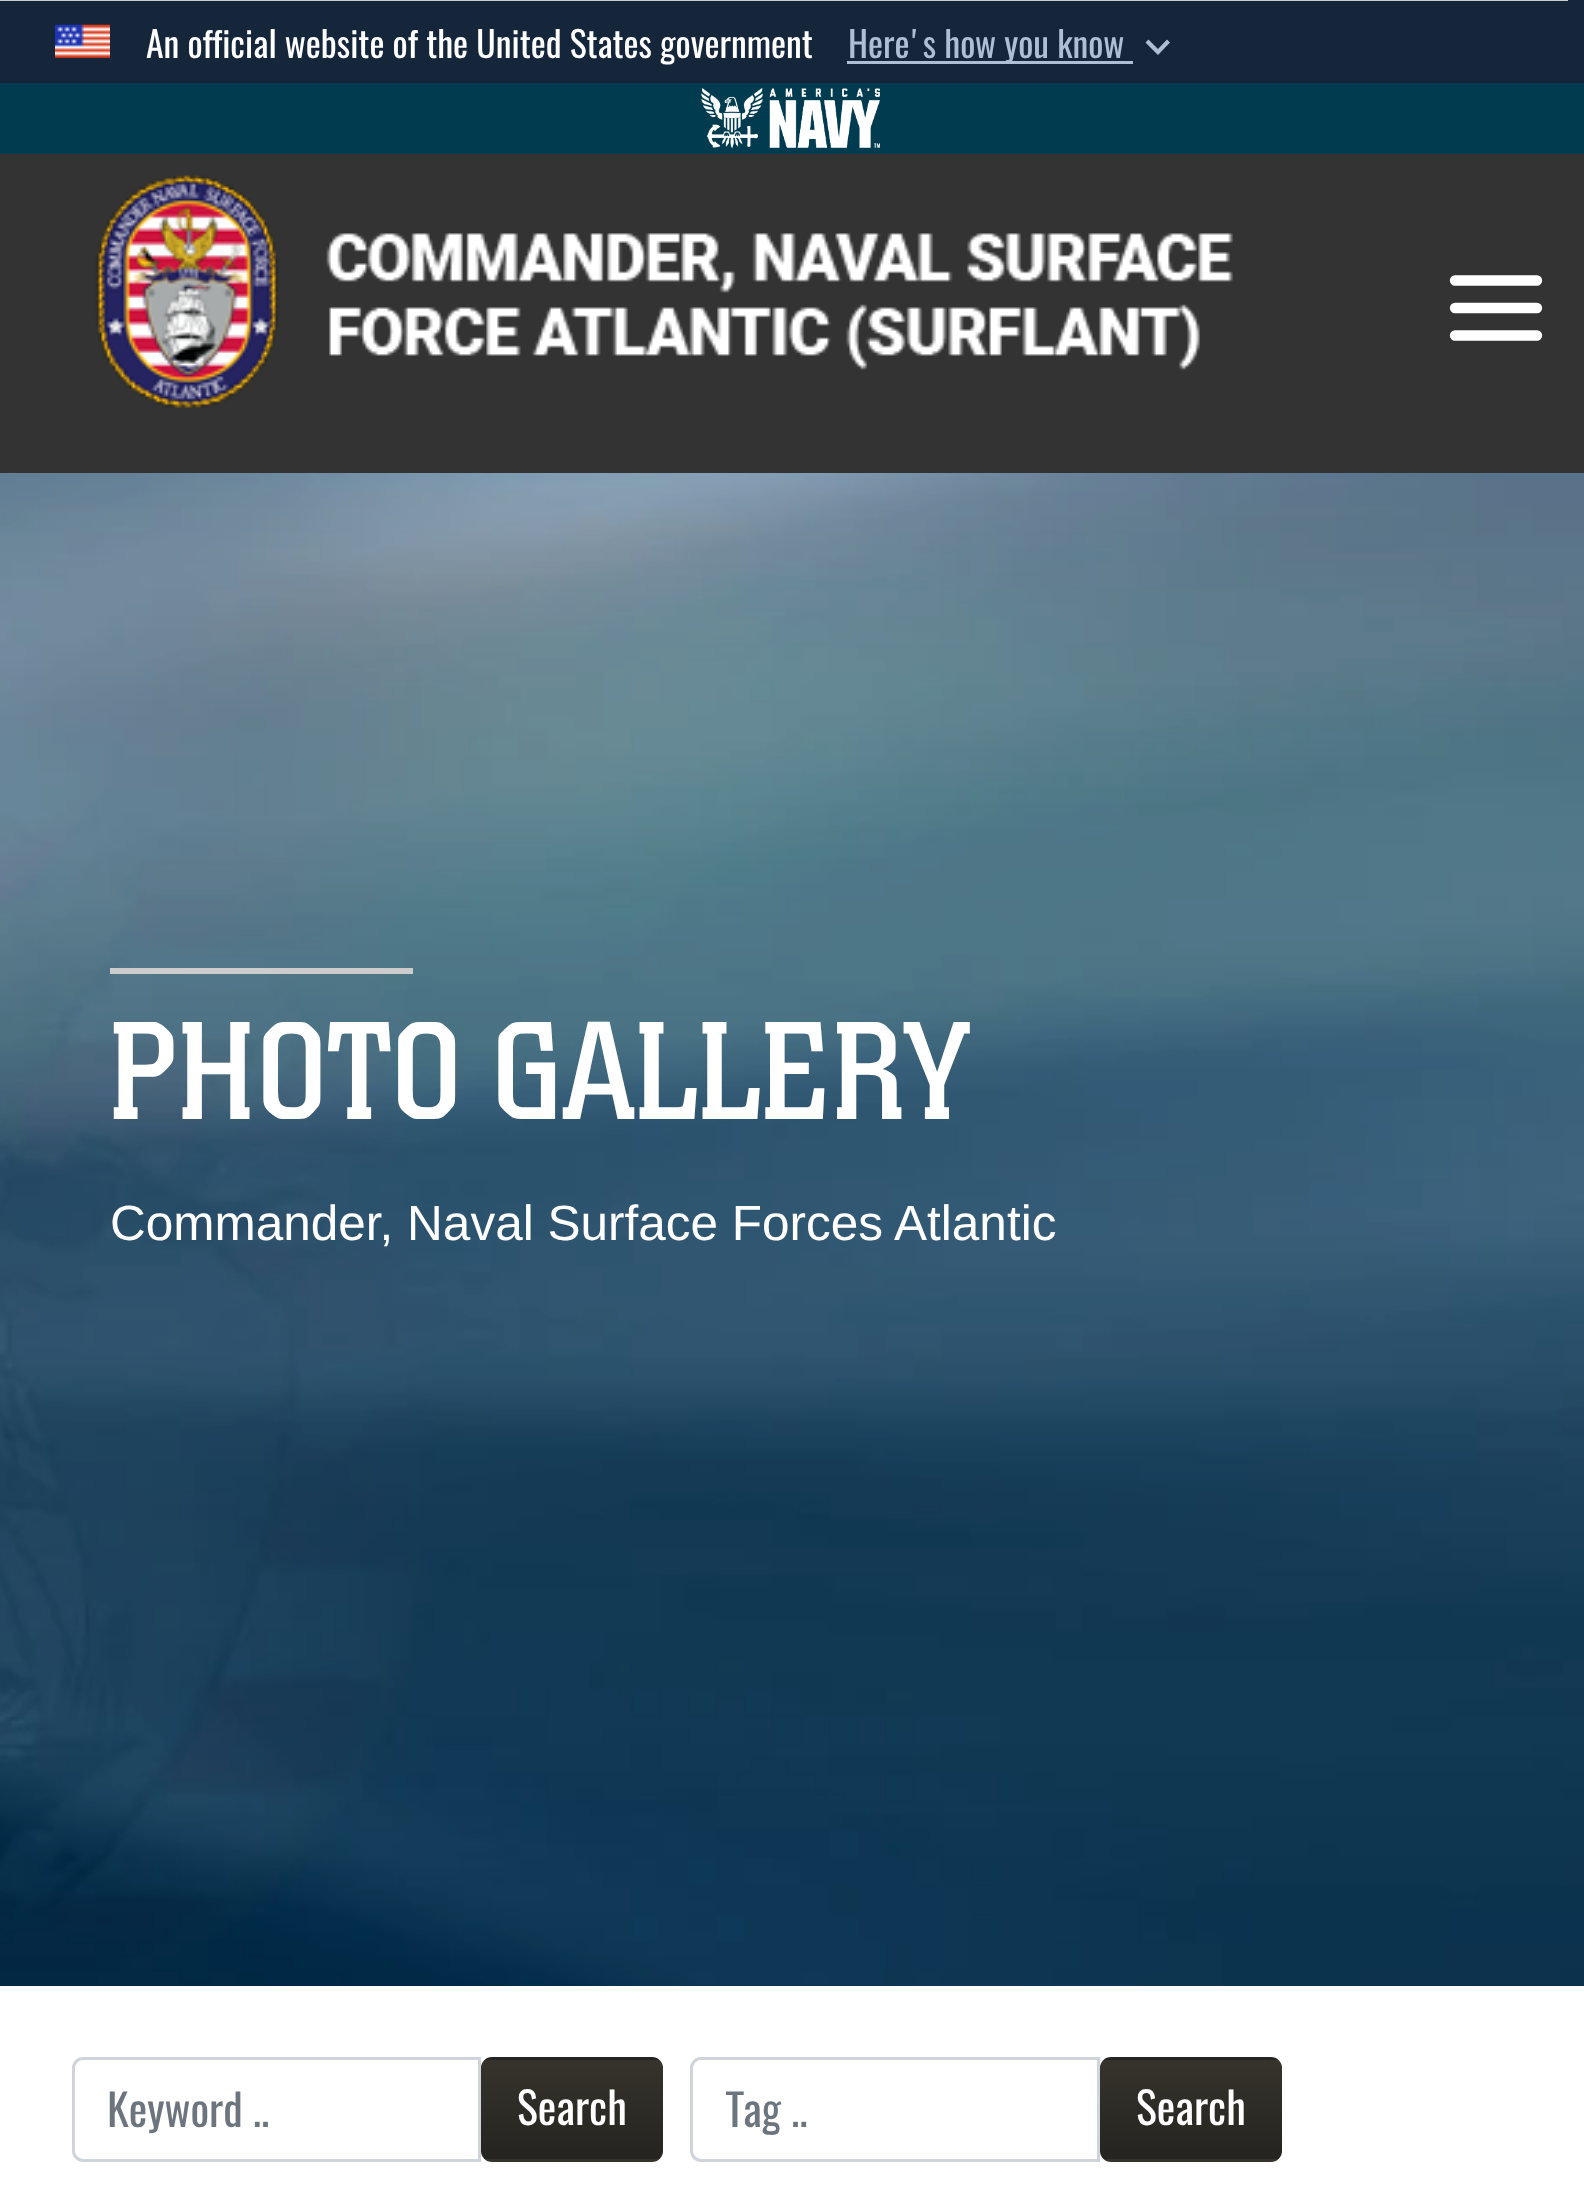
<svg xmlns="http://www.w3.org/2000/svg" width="1584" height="2200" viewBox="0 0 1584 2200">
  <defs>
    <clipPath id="clip1"><rect x="481" y="2057" width="182" height="105" rx="11"/></clipPath>
    <linearGradient id="g1" gradientUnits="userSpaceOnUse" x1="572" y1="1961" x2="572" y2="2060"><stop offset="0" stop-color="rgb(54,51,44)"/><stop offset="0.99" stop-color="rgb(37,36,32)"/></linearGradient>
    <linearGradient id="g2" gradientUnits="userSpaceOnUse" x1="572" y1="2060" x2="572" y2="2159"><stop offset="0" stop-color="rgb(54,51,44)"/><stop offset="0.99" stop-color="rgb(37,36,32)"/></linearGradient>
    <linearGradient id="g3" gradientUnits="userSpaceOnUse" x1="572" y1="2159" x2="572" y2="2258"><stop offset="0" stop-color="rgb(54,51,44)"/><stop offset="0.99" stop-color="rgb(37,36,32)"/></linearGradient>
    <clipPath id="clip2"><rect x="726" y="2079" width="338" height="58"/></clipPath>
    <clipPath id="clip3"><rect x="1100" y="2057" width="182" height="105" rx="11"/></clipPath>
    <linearGradient id="g4" gradientUnits="userSpaceOnUse" x1="1191" y1="1961" x2="1191" y2="2060"><stop offset="0" stop-color="rgb(54,51,44)"/><stop offset="0.99" stop-color="rgb(37,36,32)"/></linearGradient>
    <linearGradient id="g5" gradientUnits="userSpaceOnUse" x1="1191" y1="2060" x2="1191" y2="2159"><stop offset="0" stop-color="rgb(54,51,44)"/><stop offset="0.99" stop-color="rgb(37,36,32)"/></linearGradient>
    <linearGradient id="g6" gradientUnits="userSpaceOnUse" x1="1191" y1="2159" x2="1191" y2="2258"><stop offset="0" stop-color="rgb(54,51,44)"/><stop offset="0.99" stop-color="rgb(37,36,32)"/></linearGradient>
  </defs>
  <rect width="100%" height="100%" fill="rgb(255,255,255)"/>
  <rect x="0" y="0" width="1584" height="83" fill="rgb(21,38,59)"/>
  <image x="55" y="24" width="55" height="34" href="pic1.png"/>
  <text x="146" y="58" font-family="Oswald" font-size="35.75" fill="rgb(255,255,255)">An official website of the United States government</text>
  <rect x="847" y="61" width="286" height="3" fill="rgb(174,191,212)"/>
  <text x="848" y="58" font-family="Oswald" font-size="35.75" fill="rgb(174,191,212)">Here's how you know</text>
  <path d="M1167 39.5L1158 49L1148.5 39.5L1145.5 42.5L1158 55L1170 42.5Z" fill="rgb(174,191,212)"/>
  <rect x="0" y="0" width="1568" height="1" fill="rgb(204,204,204)"/>
  <rect x="0" y="83" width="1584" height="71" fill="rgb(0,59,79)"/>
  <image x="701" y="88" width="179" height="61" href="pic2.png"/>
  <rect x="0" y="154" width="1584" height="319" fill="rgb(51,51,51)"/>
  <image x="95" y="175" width="1138" height="233" href="pic3.png"/>
  <path d="M1455 280.5H1537M1455 308H1537M1455 335.5H1537" fill="none" stroke="rgb(255,255,255)" stroke-width="10.3" stroke-linecap="round"/>
  <image x="0" y="473" width="1584" height="1513" href="pic4.png"/>
  <rect x="110" y="968" width="303" height="6" fill="rgb(204,204,204)"/>
  <text x="110" y="1119" font-family="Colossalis" font-size="137.5" fill="rgb(255,255,255)">PHOTO GALLERY</text>
  <text x="110" y="1240" font-family="Liberation Sans" font-size="49.5" fill="rgb(255,255,255)">Commander, Naval Surface Forces Atlantic</text>
  <path d="M83 2058.5H479.5V2160.5H83C78 2160.5 73.5 2156 73.5 2151V2068C73.5 2063 78 2058.5 83 2058.5Z" fill="none" stroke="rgb(206,212,218)" stroke-width="3"/>
  <text x="107" y="2127" font-family="Oswald" font-size="44" fill="rgb(108,117,125)">Keyword ..</text>
  <g clip-path="url(#clip1)">
    <rect x="481" y="2057" width="182" height="3" fill="url(#g1)"/>
    <rect x="481" y="2060" width="182" height="99" fill="url(#g2)"/>
    <rect x="481" y="2159" width="182" height="3" fill="url(#g3)"/>
  </g>
  <text x="517" y="2125" font-family="Oswald" font-size="44" fill="rgb(255,255,255)">Search</text>
  <path d="M701 2058.5H1098.5V2160.5H701C696 2160.5 691.5 2156 691.5 2151V2068C691.5 2063 696 2058.5 701 2058.5Z" fill="none" stroke="rgb(206,212,218)" stroke-width="3"/>
  <g clip-path="url(#clip2)">
    <text x="726" y="2127" font-family="Oswald" font-size="44" fill="rgb(108,117,125)">Tag ..</text>
  </g>
  <g clip-path="url(#clip3)">
    <rect x="1100" y="2057" width="182" height="3" fill="url(#g4)"/>
    <rect x="1100" y="2060" width="182" height="99" fill="url(#g5)"/>
    <rect x="1100" y="2159" width="182" height="3" fill="url(#g6)"/>
  </g>
  <text x="1136" y="2125" font-family="Oswald" font-size="44" fill="rgb(255,255,255)">Search</text>
</svg>
